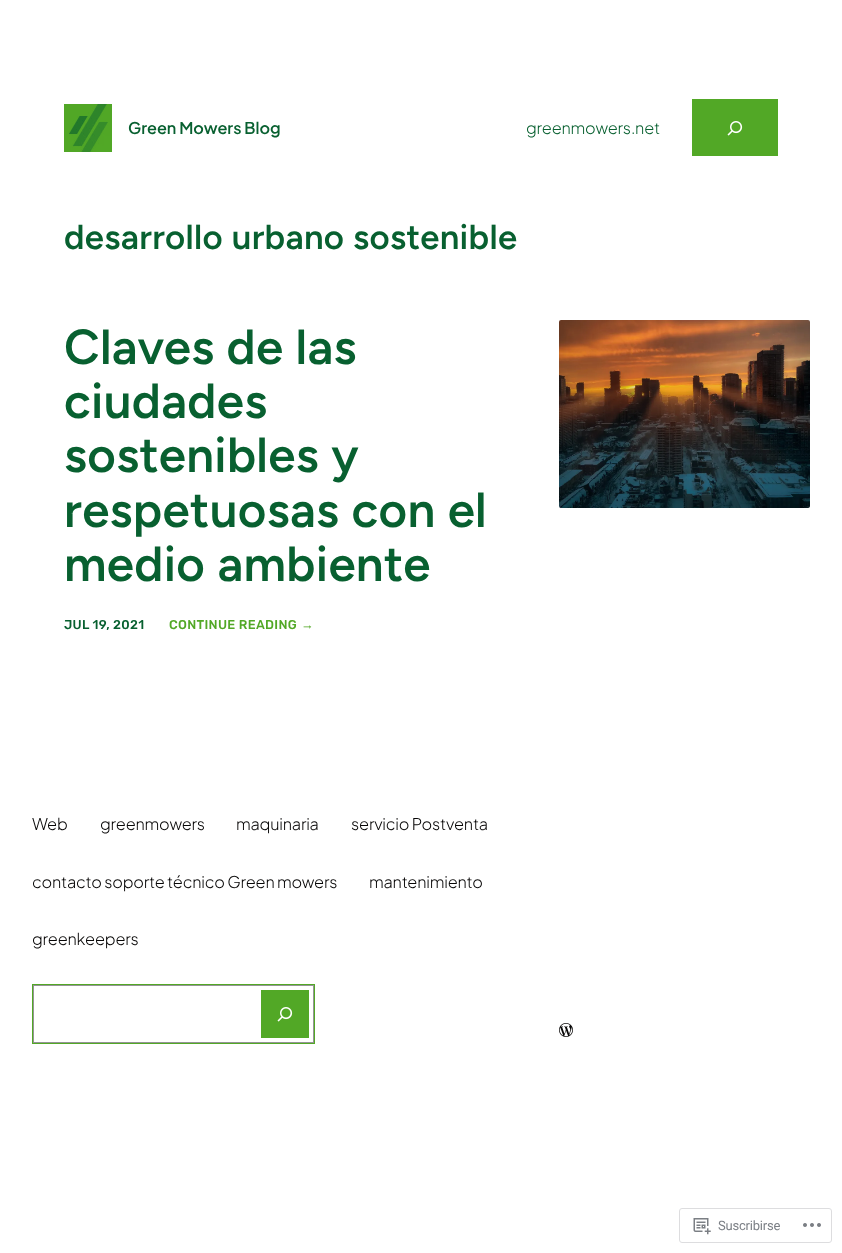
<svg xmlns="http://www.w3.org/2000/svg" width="842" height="1253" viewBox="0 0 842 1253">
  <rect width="100%" height="100%" fill="rgb(255,255,255)"/>
  <image x="64" y="104" width="48" height="48" href="pic1.png"/>
  <text x="128" y="134" font-family="Plus Jakarta Sans" font-size="16.2" font-weight="600" fill="rgb(8,96,48)">Green Mowers Blog</text>
  <text x="526" y="134" font-family="Plus Jakarta Sans" font-size="16.2" font-weight="300" letter-spacing="-0.2" fill="rgb(8,96,48)">greenmowers.net</text>
  <rect x="692.5" y="99.5" width="85" height="56" fill="none" stroke="rgb(82,168,38)"/>
  <rect x="693" y="100" width="84" height="55" fill="rgb(82,168,38)"/>
  <image x="727" y="121" width="16" height="15" href="pic2.png"/>
  <text x="64" y="249" font-family="Figtree" font-size="34.75" font-weight="600" letter-spacing="0.3" fill="rgb(8,96,48)">desarrollo urbano sostenible</text>
  <g font-family="Figtree" font-size="49.25" font-weight="600" letter-spacing="0.3" fill="rgb(8,96,48)">
    <text>
      <tspan x="64" y="364">Claves de las</tspan>
      <tspan x="64" y="418">ciudades</tspan>
      <tspan x="64" y="472">sostenibles y</tspan>
      <tspan x="64" y="527">respetuosas con el</tspan>
      <tspan x="64" y="581">medio ambiente</tspan>
    </text>
  </g>
  <text x="64" y="629" font-family="Rubik" font-size="12.75" font-weight="500" letter-spacing="0.3" fill="rgb(8,96,48)">JUL 19, 2021</text>
  <text x="169" y="629" font-family="Rubik" font-size="12.75" font-weight="500" letter-spacing="0.3" fill="rgb(82,168,38)">CONTINUE READING</text>
  <text x="301" y="629" font-family="Liberation Serif" font-size="12.75" letter-spacing="0.3" fill="rgb(82,168,38)">→</text>
  <image x="559" y="320" width="251" height="188" href="pic3.png"/>
  <g font-family="Plus Jakarta Sans" font-size="16.2" font-weight="300" letter-spacing="-0.2" fill="rgb(7,6,6)">
    <text x="32" y="830">Web</text>
    <text x="100" y="830">greenmowers</text>
    <text x="236" y="830">maquinaria</text>
    <text x="351" y="830">servicio Postventa</text>
    <text x="32" y="888">contacto soporte técnico Green mowers</text>
    <text x="369" y="888">mantenimiento</text>
    <text x="32" y="945">greenkeepers</text>
  </g>
  <rect x="32.5" y="984.5" width="282" height="59" fill="none" stroke="rgb(82,168,38)"/>
  <rect x="33.5" y="985.5" width="280" height="57" fill="none" stroke="rgb(148,148,148)"/>
  <rect x="261" y="990" width="48" height="48" fill="rgb(82,168,38)"/>
  <image x="277" y="1007" width="16" height="15" href="pic2.png"/>
  <image x="559" y="1023" width="14" height="14" href="pic4.png"/>
  <rect x="679.5" y="1208.5" width="152" height="34" rx="2.5" fill="none" stroke="rgb(221,221,223)"/>
  <image x="693" y="1218" width="18" height="17" href="pic5.png"/>
  <text x="718" y="1230" font-family="Roboto" font-size="13" letter-spacing="-0.2" fill="rgb(123,127,133)">Suscribirse</text>
  <image x="803" y="1223" width="18" height="4" href="pic6.png"/>
</svg>
